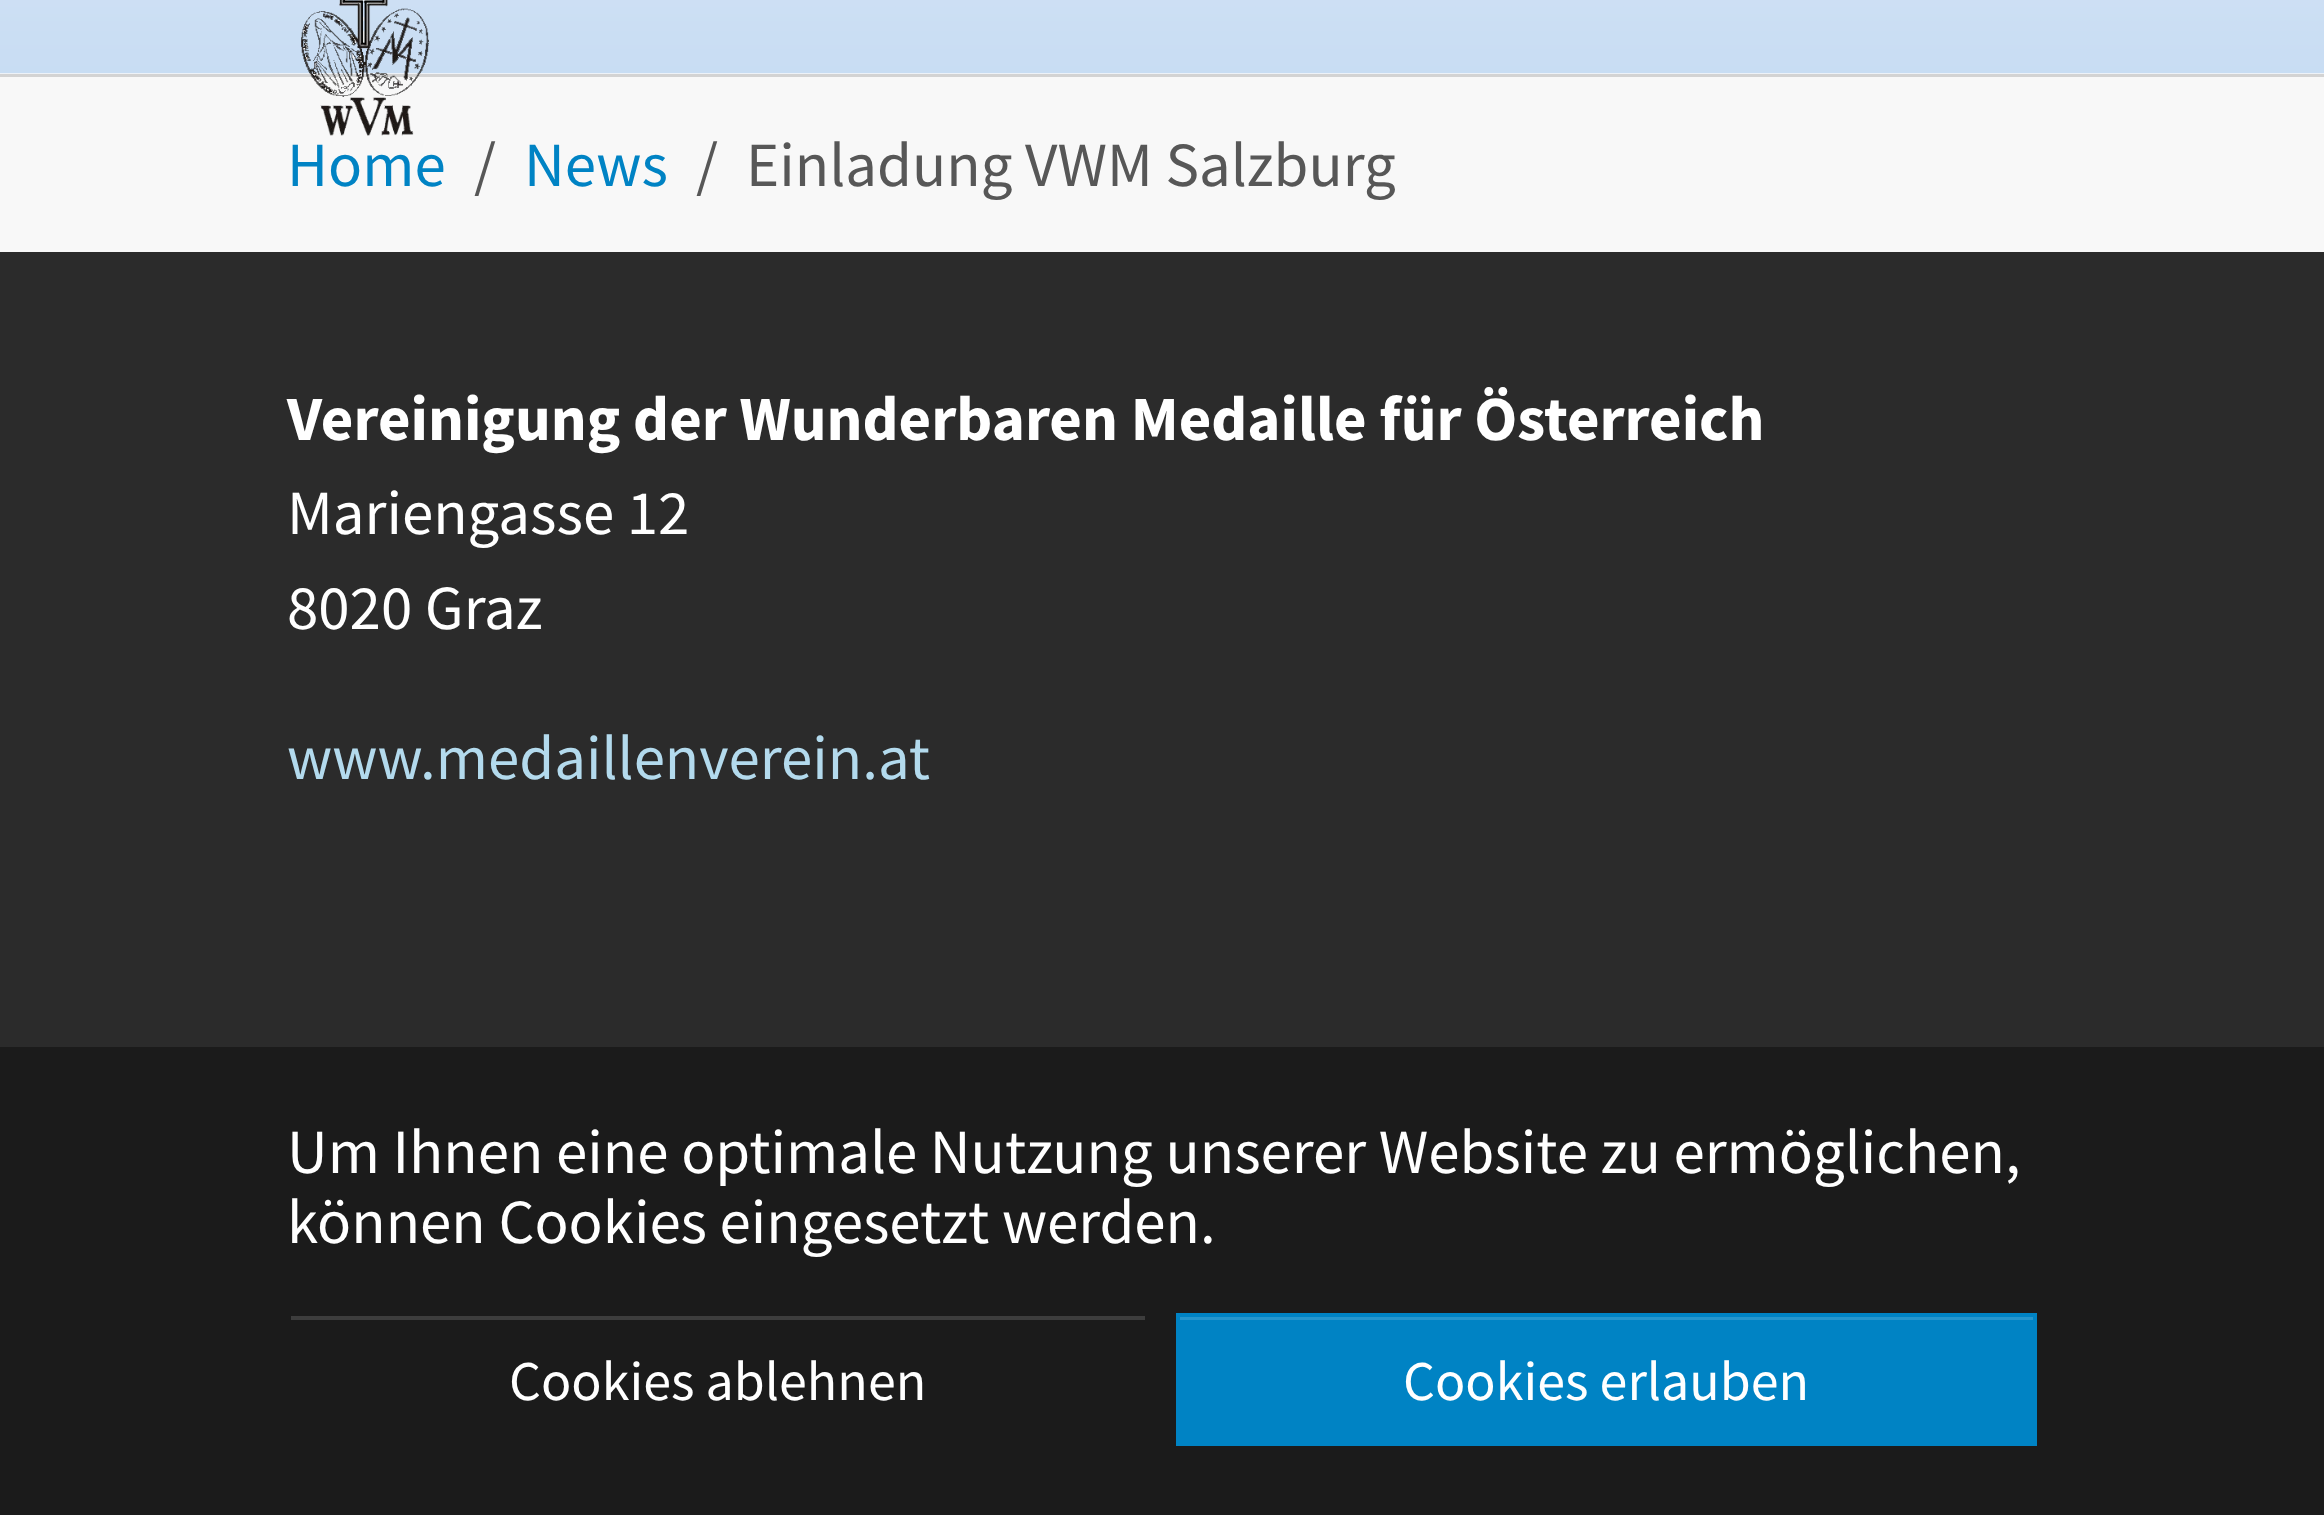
<svg xmlns="http://www.w3.org/2000/svg" width="2324" height="1515" viewBox="0 0 2324 1515">
  <rect width="100%" height="100%" fill="rgb(248,248,248)"/>
  <rect x="0" y="74" width="2324" height="3" fill="rgb(211,211,211)"/>
  <rect x="0" y="73" width="2324" height="1" fill="rgb(237,242,248)"/>
  <image x="0" y="0" width="2324" height="73" href="pic1.png"/>
  <image x="301" y="0" width="128" height="136" href="pic2.png"/>
  <text x="287" y="186" font-family="Source Sans Pro" font-size="63" fill="rgb(0,131,196)">Home</text>
  <text x="474" y="186" font-family="Source Sans Pro" font-size="63" fill="rgb(87,87,87)">/</text>
  <text x="524" y="186" font-family="Source Sans Pro" font-size="63" fill="rgb(0,131,196)">News</text>
  <g font-family="Source Sans Pro" font-size="63" fill="rgb(87,87,87)">
    <text x="696" y="186">/</text>
    <text x="746" y="186">Einladung VWM Salzburg</text>
  </g>
  <rect x="0" y="252" width="2324" height="795" fill="rgb(43,43,43)"/>
  <text x="287" y="440" font-family="Source Sans Pro" font-size="63" font-weight="bold" fill="rgb(255,255,255)">Vereinigung der Wunderbaren Medaille für Österreich</text>
  <g font-family="Source Sans Pro" font-size="63" fill="rgb(255,255,255)">
    <text>
      <tspan x="287" y="534">Mariengasse 12</tspan>
      <tspan x="287" y="629">8020 Graz</tspan>
    </text>
  </g>
  <text x="287" y="779" font-family="Source Sans Pro" font-size="63" fill="rgb(179,218,237)">www.medaillenverein.at</text>
  <rect x="0" y="1047" width="2324" height="468" fill="rgb(27,27,27)"/>
  <g font-family="Source Sans Pro" font-size="63" fill="rgb(255,255,255)">
    <text>
      <tspan x="287" y="1173">Um Ihnen eine optimale Nutzung unserer Website zu ermöglichen,</tspan>
      <tspan x="287" y="1243">können Cookies eingesetzt werden.</tspan>
    </text>
  </g>
  <rect x="291" y="1316" width="854" height="4" fill="rgb(61,61,61)"/>
  <text x="509" y="1400" font-family="Source Sans Pro" font-size="56" fill="rgb(255,255,255)">Cookies ablehnen</text>
  <rect x="1180" y="1320" width="853" height="122" fill="rgb(0,131,196)"/>
  <rect x="1180" y="1317" width="854" height="3" fill="rgb(38,150,205)"/>
  <rect x="1178" y="1315" width="857" height="129" fill="none" stroke="rgb(0,131,196)" stroke-width="4"/>
  <text x="1403" y="1400" font-family="Source Sans Pro" font-size="56" fill="rgb(255,255,255)">Cookies erlauben</text>
</svg>
